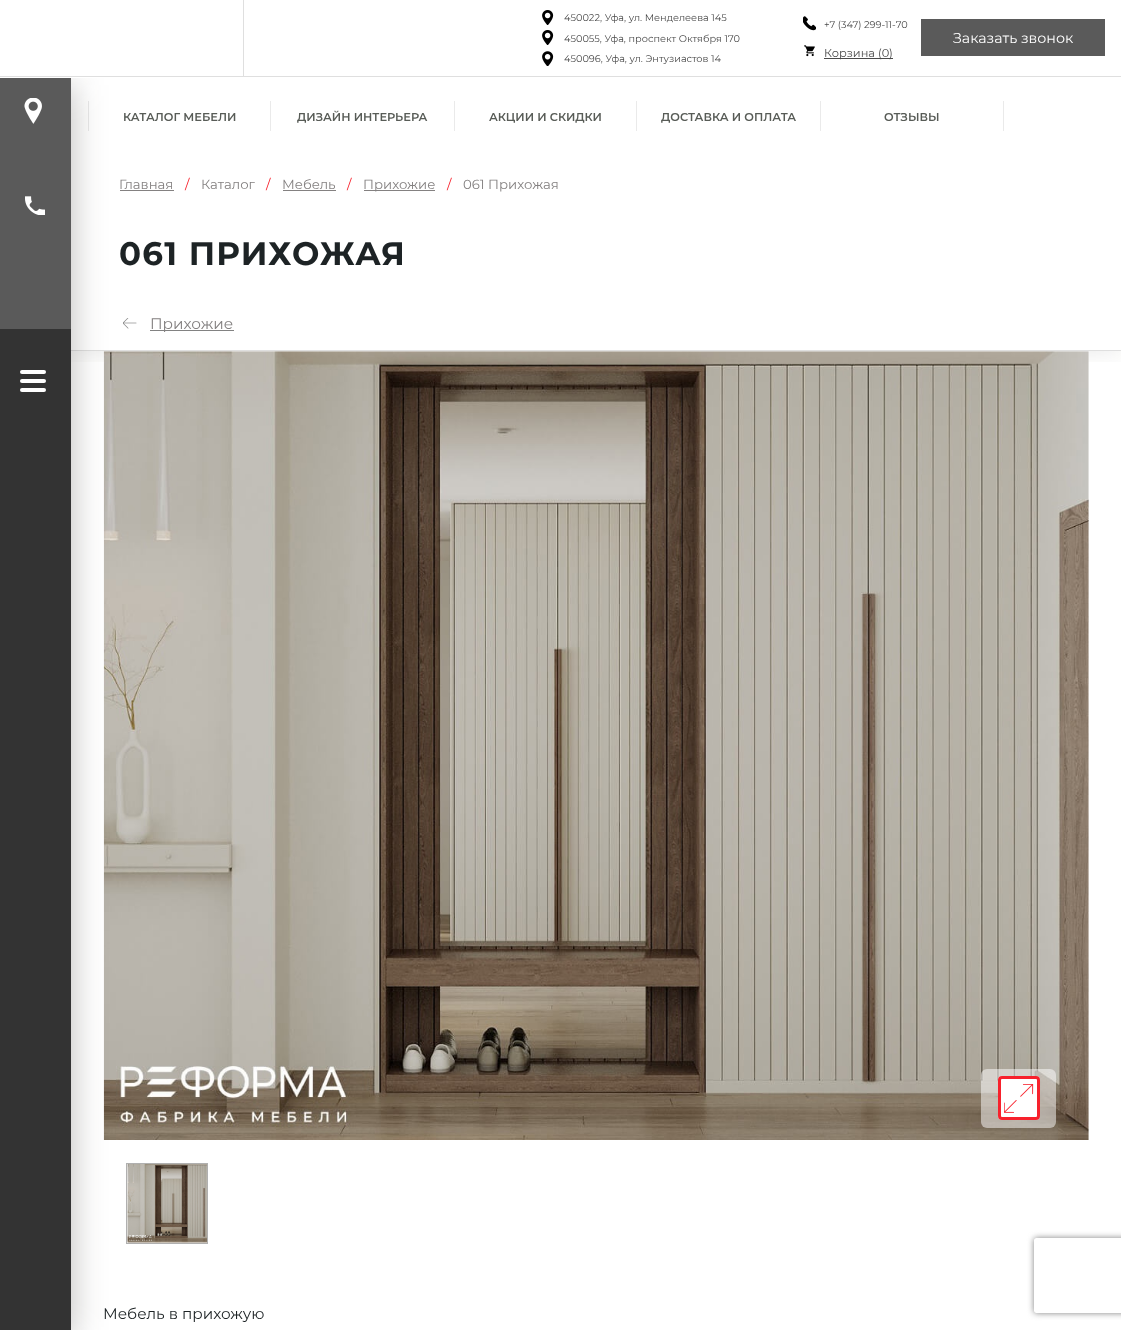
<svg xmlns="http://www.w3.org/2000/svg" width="1121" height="1330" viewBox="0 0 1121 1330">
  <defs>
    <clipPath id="clip1"><rect x="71" y="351" width="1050" height="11"/></clipPath>
    <clipPath id="clip2"><rect x="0" y="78" width="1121" height="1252"/></clipPath>
    <clipPath id="clip3"><path d="M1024 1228H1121V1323H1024ZM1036.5 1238H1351.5C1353 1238 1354 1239 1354 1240.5V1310.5C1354 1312 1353 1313 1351.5 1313H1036.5C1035 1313 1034 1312 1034 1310.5V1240.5C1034 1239 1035 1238 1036.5 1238Z" clip-rule="evenodd"/></clipPath>
  </defs>
  <rect width="100%" height="100%" fill="rgb(255,255,255)"/>
  <rect x="0" y="76" width="1121" height="1" fill="rgb(223,223,223)"/>
  <rect x="243" y="0" width="1" height="76" fill="rgb(223,223,223)"/>
  <image x="542" y="10" width="12" height="15" href="pic1.png"/>
  <text x="564" y="21" font-family="Montserrat" font-size="9.75" fill="rgb(74,74,74)">450022, Уфа, ул. Менделеева 145</text>
  <image x="542" y="30" width="12" height="15" href="pic1.png"/>
  <text x="564" y="42" font-family="Montserrat" font-size="9.75" fill="rgb(74,74,74)">450055, Уфа, проспект Октября 170</text>
  <image x="542" y="51" width="12" height="15" href="pic2.png"/>
  <text x="564" y="62" font-family="Montserrat" font-size="9.75" fill="rgb(74,74,74)">450096, Уфа, ул. Энтузиастов 14</text>
  <image x="803" y="16" width="13" height="15" href="pic3.png"/>
  <text x="824" y="28" font-family="Montserrat" font-size="9.75" fill="rgb(74,74,74)">+7 (347) 299-11-70</text>
  <image x="804" y="45" width="11" height="12" href="pic4.png"/>
  <rect x="824" y="58" width="57" height="1" fill="rgb(74,74,74)"/>
  <text x="824" y="57" font-family="Montserrat" font-size="11.4" fill="rgb(74,74,74)">Корзина (0</text>
  <rect x="881" y="58" width="12" height="1" fill="rgb(74,74,74)"/>
  <text x="889" y="57" font-family="Montserrat" font-size="11.4" fill="rgb(74,74,74)">)</text>
  <rect x="921" y="19" width="184" height="37" fill="rgb(90,90,90)"/>
  <text x="953" y="43" font-family="Montserrat" font-size="14.25" fill="rgb(255,255,255)">Заказать звонок</text>
  <g clip-path="url(#clip1)">
    <rect x="71" y="156" width="1050" height="195" fill="rgba(33,30,22,0.1)" filter="blur(13.5px)"/>
  </g>
  <rect x="71" y="139" width="1050" height="17" fill="rgb(255,255,255)"/>
  <rect x="88" y="101" width="1" height="30" fill="rgb(234,234,234)"/>
  <rect x="71" y="350" width="1050" height="1" fill="rgb(223,223,223)"/>
  <rect x="120" y="190" width="54" height="1" fill="rgb(132,129,129)"/>
  <image x="103" y="351" width="986" height="789" href="pic8.png"/>
  <g clip-path="url(#clip2)">
    <rect x="0" y="85" width="71" height="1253" fill="rgba(33,30,22,0.3)" filter="blur(17px)"/>
  </g>
  <rect x="0" y="329" width="71" height="1001" fill="rgb(51,51,51)"/>
  <rect x="0" y="78" width="71" height="251" fill="rgb(90,90,90)"/>
  <image x="24" y="98" width="18" height="26" href="pic5.png"/>
  <image x="25" y="196" width="20" height="19" href="pic6.png"/>
  <rect x="20" y="370" width="26" height="4" rx="2" fill="rgb(255,255,255)"/>
  <rect x="20" y="379" width="26" height="4" rx="2" fill="rgb(255,255,255)"/>
  <rect x="20" y="388" width="26" height="4" rx="2" fill="rgb(255,255,255)"/>
  <text x="123" y="121" font-family="Montserrat" font-size="11.4" font-weight="600" fill="rgb(88,92,87)">КАТАЛОГ МЕБЕЛИ</text>
  <rect x="270" y="101" width="1" height="30" fill="rgb(234,234,234)"/>
  <text x="297" y="121" font-family="Montserrat" font-size="11.4" font-weight="600" fill="rgb(88,92,87)">ДИЗАЙН ИНТЕРЬЕРА</text>
  <rect x="454" y="101" width="1" height="30" fill="rgb(234,234,234)"/>
  <text x="489" y="121" font-family="Montserrat" font-size="11.4" font-weight="600" fill="rgb(88,92,87)">АКЦИИ И СКИДКИ</text>
  <rect x="636" y="101" width="1" height="30" fill="rgb(234,234,234)"/>
  <text x="661" y="121" font-family="Montserrat" font-size="11.4" font-weight="600" fill="rgb(88,92,87)">ДОСТАВКА И ОПЛАТА</text>
  <rect x="1003" y="101" width="1" height="30" fill="rgb(234,234,234)"/>
  <rect x="820" y="101" width="1" height="30" fill="rgb(234,234,234)"/>
  <text x="884" y="121" font-family="Montserrat" font-size="11.4" font-weight="600" fill="rgb(88,92,87)">ОТЗЫВЫ</text>
  <text x="119" y="189" font-family="Montserrat" font-size="13.25" fill="rgb(132,129,129)">Главная</text>
  <text x="185" y="189" font-family="Montserrat" font-size="13.25" fill="rgb(247,33,44)">/</text>
  <text x="201" y="189" font-family="Montserrat" font-size="13.25" fill="rgb(132,129,129)">Каталог</text>
  <text x="266" y="189" font-family="Montserrat" font-size="13.25" fill="rgb(247,33,44)">/</text>
  <text x="282" y="189" font-family="Montserrat" font-size="13.25" fill="rgb(132,129,129)">Мебель</text>
  <rect x="283" y="190" width="53" height="1" fill="rgb(132,129,129)"/>
  <text x="347" y="189" font-family="Montserrat" font-size="13.25" fill="rgb(247,33,44)">/</text>
  <rect x="364" y="190" width="71" height="1" fill="rgb(132,129,129)"/>
  <text x="363" y="189" font-family="Montserrat" font-size="13.25" fill="rgb(132,129,129)">Прихожие</text>
  <text x="447" y="189" font-family="Montserrat" font-size="13.25" fill="rgb(247,33,44)">/</text>
  <text x="463" y="189" font-family="Montserrat" font-size="13.25" fill="rgb(132,129,129)">061 Прихожая</text>
  <text x="119" y="265" font-family="Montserrat" font-size="32.5" font-weight="bold" letter-spacing="1.25" fill="rgb(29,35,37)">061 ПРИХОЖАЯ</text>
  <image x="123" y="318" width="14" height="11" href="pic7.png"/>
  <rect x="150" y="330" width="84" height="1" fill="rgb(130,130,130)"/>
  <text x="150" y="329" font-family="Montserrat" font-size="15.25" fill="rgb(132,129,129)">Прихожие</text>
  <rect x="981" y="1069" width="75" height="59" rx="6" fill="rgba(255,255,255,0.5)"/>
  <rect x="998" y="1076" width="42" height="44" rx="4" fill="rgb(255,255,255)"/>
  <image x="1004" y="1084" width="30" height="29" href="pic9.png"/>
  <rect x="999.5" y="1077.5" width="39" height="41" rx="2.5" fill="none" stroke="rgb(247,33,44)" stroke-width="3"/>
  <image x="127" y="1164" width="80" height="79" href="pic10.png"/>
  <rect x="126.5" y="1163.5" width="81" height="80" fill="none" stroke="rgb(176,176,176)"/>
  <text x="103" y="1319" font-family="Montserrat" font-size="15.25" fill="rgb(29,35,37)">Мебель в прихожую</text>
  <g clip-path="url(#clip3)">
    <rect x="1034" y="1238" width="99" height="75" rx="2.5" fill="rgb(128,128,128)" filter="blur(3px)"/>
  </g>
</svg>
